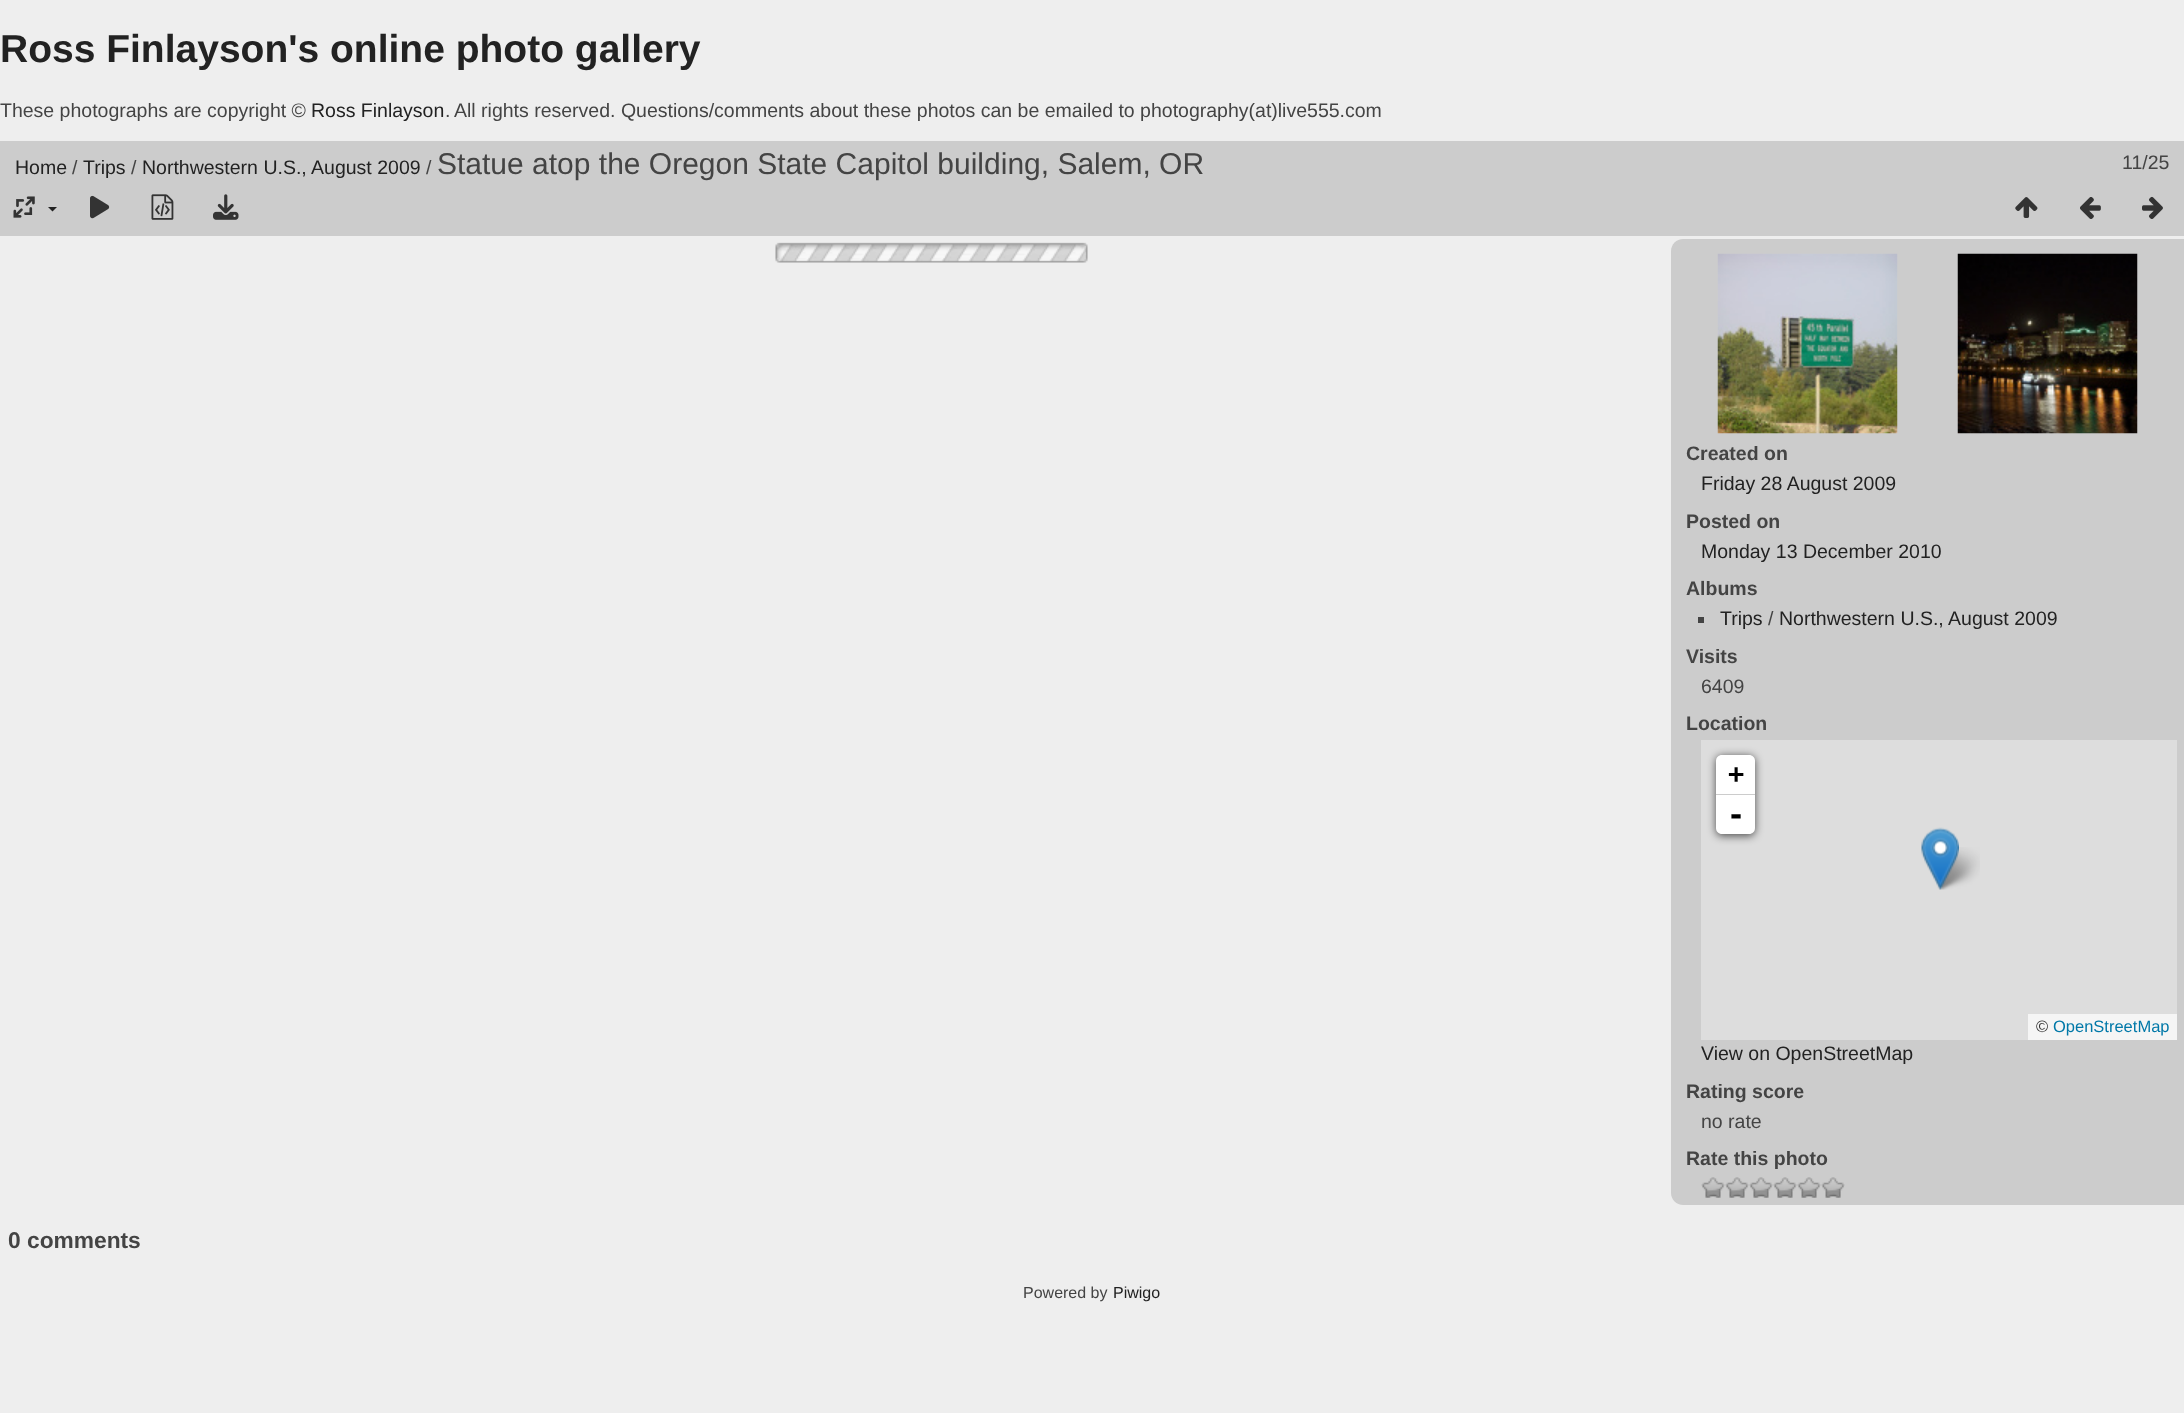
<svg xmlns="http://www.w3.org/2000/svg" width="2184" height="1413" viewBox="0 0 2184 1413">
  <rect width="100%" height="100%" fill="rgb(238,238,238)"/>
  <text x="0" y="62" font-family="Liberation Sans" font-size="39" font-weight="bold" fill="rgb(34,34,34)">Ross Finlayson's online photo gallery</text>
  <text x="0" y="117" font-family="Liberation Sans" font-size="19.5" fill="rgb(68,68,68)">These photographs are copyright ©</text>
  <text x="311" y="117" font-family="Liberation Sans" font-size="19.5" fill="rgb(34,34,34)">Ross Finlayson</text>
  <g font-family="Liberation Sans" font-size="19.5" fill="rgb(68,68,68)">
    <text x="445" y="117">.</text>
    <text x="454" y="117">All rights reserved. Questions/comments about these photos can be emailed to photography(at)live555.com</text>
  </g>
  <rect x="0" y="141" width="2184" height="95" fill="rgb(204,204,204)"/>
  <text x="15" y="174" font-family="Liberation Sans" font-size="19.5" fill="rgb(34,34,34)">Home</text>
  <text x="72" y="174" font-family="Liberation Sans" font-size="19.5" fill="rgb(68,68,68)">/</text>
  <text x="83" y="174" font-family="Liberation Sans" font-size="19.5" fill="rgb(34,34,34)">Trips</text>
  <text x="131" y="174" font-family="Liberation Sans" font-size="19.5" fill="rgb(68,68,68)">/</text>
  <text x="142" y="174" font-family="Liberation Sans" font-size="19.5" fill="rgb(34,34,34)">Northwestern U.S., August 2009</text>
  <text x="426" y="174" font-family="Liberation Sans" font-size="19.5" fill="rgb(68,68,68)">/</text>
  <text x="437" y="174" font-family="Liberation Sans" font-size="30" fill="rgb(68,68,68)">Statue atop the Oregon State Capitol building, Salem, OR</text>
  <text x="2122" y="169" font-family="Liberation Sans" font-size="19.5" fill="rgb(68,68,68)">11/25</text>
  <image x="13" y="196" width="22" height="22" href="pic1.png"/>
  <path d="M48 207H57L52.5 211.5Z" fill="rgb(34,34,34)"/>
  <image x="90" y="195" width="20" height="24" href="pic2.png"/>
  <image x="151" y="194" width="23" height="26" href="pic3.png"/>
  <image x="213" y="194" width="26" height="26" href="pic4.png"/>
  <image x="2015" y="197" width="23" height="21" href="pic5.png"/>
  <image x="2080" y="197" width="21" height="22" href="pic6.png"/>
  <image x="2142" y="196" width="21" height="23" href="pic7.png"/>
  <image x="775" y="242" width="313" height="21" href="pic8.png"/>
  <path d="M1683 239H2184V1205H1683C1676.5 1205 1671 1199.5 1671 1193V251C1671 244.5 1676.5 239 1683 239Z" fill="rgb(204,204,204)"/>
  <image x="1717" y="253" width="181" height="181" href="pic9.png"/>
  <image x="1957" y="253" width="181" height="181" href="pic10.png"/>
  <text x="1686" y="460" font-family="Liberation Sans" font-size="19.5" font-weight="bold" fill="rgb(68,68,68)">Created on</text>
  <text x="1701" y="490" font-family="Liberation Sans" font-size="19.5" fill="rgb(34,34,34)">Friday 28 August 2009</text>
  <text x="1686" y="528" font-family="Liberation Sans" font-size="19.5" font-weight="bold" fill="rgb(68,68,68)">Posted on</text>
  <text x="1701" y="558" font-family="Liberation Sans" font-size="19.5" fill="rgb(34,34,34)">Monday 13 December 2010</text>
  <text x="1686" y="595" font-family="Liberation Sans" font-size="19.5" font-weight="bold" fill="rgb(68,68,68)">Albums</text>
  <rect x="1698" y="617" width="6" height="6" fill="rgb(68,68,68)"/>
  <text x="1720" y="625" font-family="Liberation Sans" font-size="19.5" fill="rgb(34,34,34)">Trips</text>
  <text x="1768" y="625" font-family="Liberation Sans" font-size="19.5" fill="rgb(68,68,68)">/</text>
  <text x="1779" y="625" font-family="Liberation Sans" font-size="19.5" fill="rgb(34,34,34)">Northwestern U.S., August 2009</text>
  <text x="1686" y="663" font-family="Liberation Sans" font-size="19.5" font-weight="bold" fill="rgb(68,68,68)">Visits</text>
  <text x="1701" y="693" font-family="Liberation Sans" font-size="19.5" fill="rgb(68,68,68)">6409</text>
  <text x="1686" y="730" font-family="Liberation Sans" font-size="19.5" font-weight="bold" fill="rgb(68,68,68)">Location</text>
  <rect x="1701" y="740" width="476" height="300" fill="rgb(221,221,221)"/>
  <rect x="1716" y="756" width="39" height="80" rx="6" fill="rgba(0,0,0,0.65)" filter="blur(4px)"/>
  <path d="M1722 755H1749C1752.5 755 1755 757.5 1755 761V795H1716V761C1716 757.5 1718.5 755 1722 755Z" fill="rgb(255,255,255)"/>
  <rect x="1716" y="794" width="39" height="1" fill="rgb(204,204,204)"/>
  <text x="1728" y="783" font-family="DejaVu Sans Mono" font-size="27" font-weight="bold" fill="rgb(0,0,0)">+</text>
  <path d="M1716 795H1755V828C1755 831.5 1752.5 834 1749 834H1722C1718.5 834 1716 831.5 1716 828Z" fill="rgb(255,255,255)"/>
  <text x="1727" y="825" font-family="DejaVu Sans Mono" font-size="30" font-weight="bold" fill="rgb(0,0,0)">-</text>
  <rect x="2028" y="1014" width="149" height="26" fill="rgb(245,245,245)"/>
  <text x="2036" y="1032" font-family="Liberation Sans" font-size="16.5" fill="rgb(51,51,51)">©</text>
  <text x="2053" y="1032" font-family="Liberation Sans" font-size="16.5" fill="rgb(0,120,168)">OpenStreetMap</text>
  <image x="1935" y="847" width="45" height="43" href="pic12.png"/>
  <image x="1921" y="827" width="38" height="63" href="pic11.png"/>
  <text x="1701" y="1060" font-family="Liberation Sans" font-size="19.5" fill="rgb(34,34,34)">View on OpenStreetMap</text>
  <text x="1686" y="1098" font-family="Liberation Sans" font-size="19.5" font-weight="bold" fill="rgb(68,68,68)">Rating score</text>
  <text x="1701" y="1128" font-family="Liberation Sans" font-size="19.5" fill="rgb(68,68,68)">no rate</text>
  <text x="1686" y="1165" font-family="Liberation Sans" font-size="19.5" font-weight="bold" fill="rgb(68,68,68)">Rate this photo</text>
  <image x="1701" y="1177" width="24" height="21" href="pic13.png"/>
  <image x="1725" y="1177" width="24" height="21" href="pic13.png"/>
  <image x="1749" y="1177" width="24" height="21" href="pic13.png"/>
  <image x="1773" y="1177" width="24" height="21" href="pic13.png"/>
  <image x="1797" y="1177" width="24" height="21" href="pic14.png"/>
  <image x="1821" y="1177" width="24" height="21" href="pic15.png"/>
  <text x="8" y="1248" font-family="Liberation Sans" font-size="22.75" font-weight="bold" fill="rgb(68,68,68)">0 comments</text>
  <text x="1023" y="1298" font-family="Liberation Sans" font-size="16" fill="rgb(68,68,68)">Powered by</text>
  <text x="1113" y="1298" font-family="Liberation Sans" font-size="16" fill="rgb(34,34,34)">Piwigo</text>
</svg>
